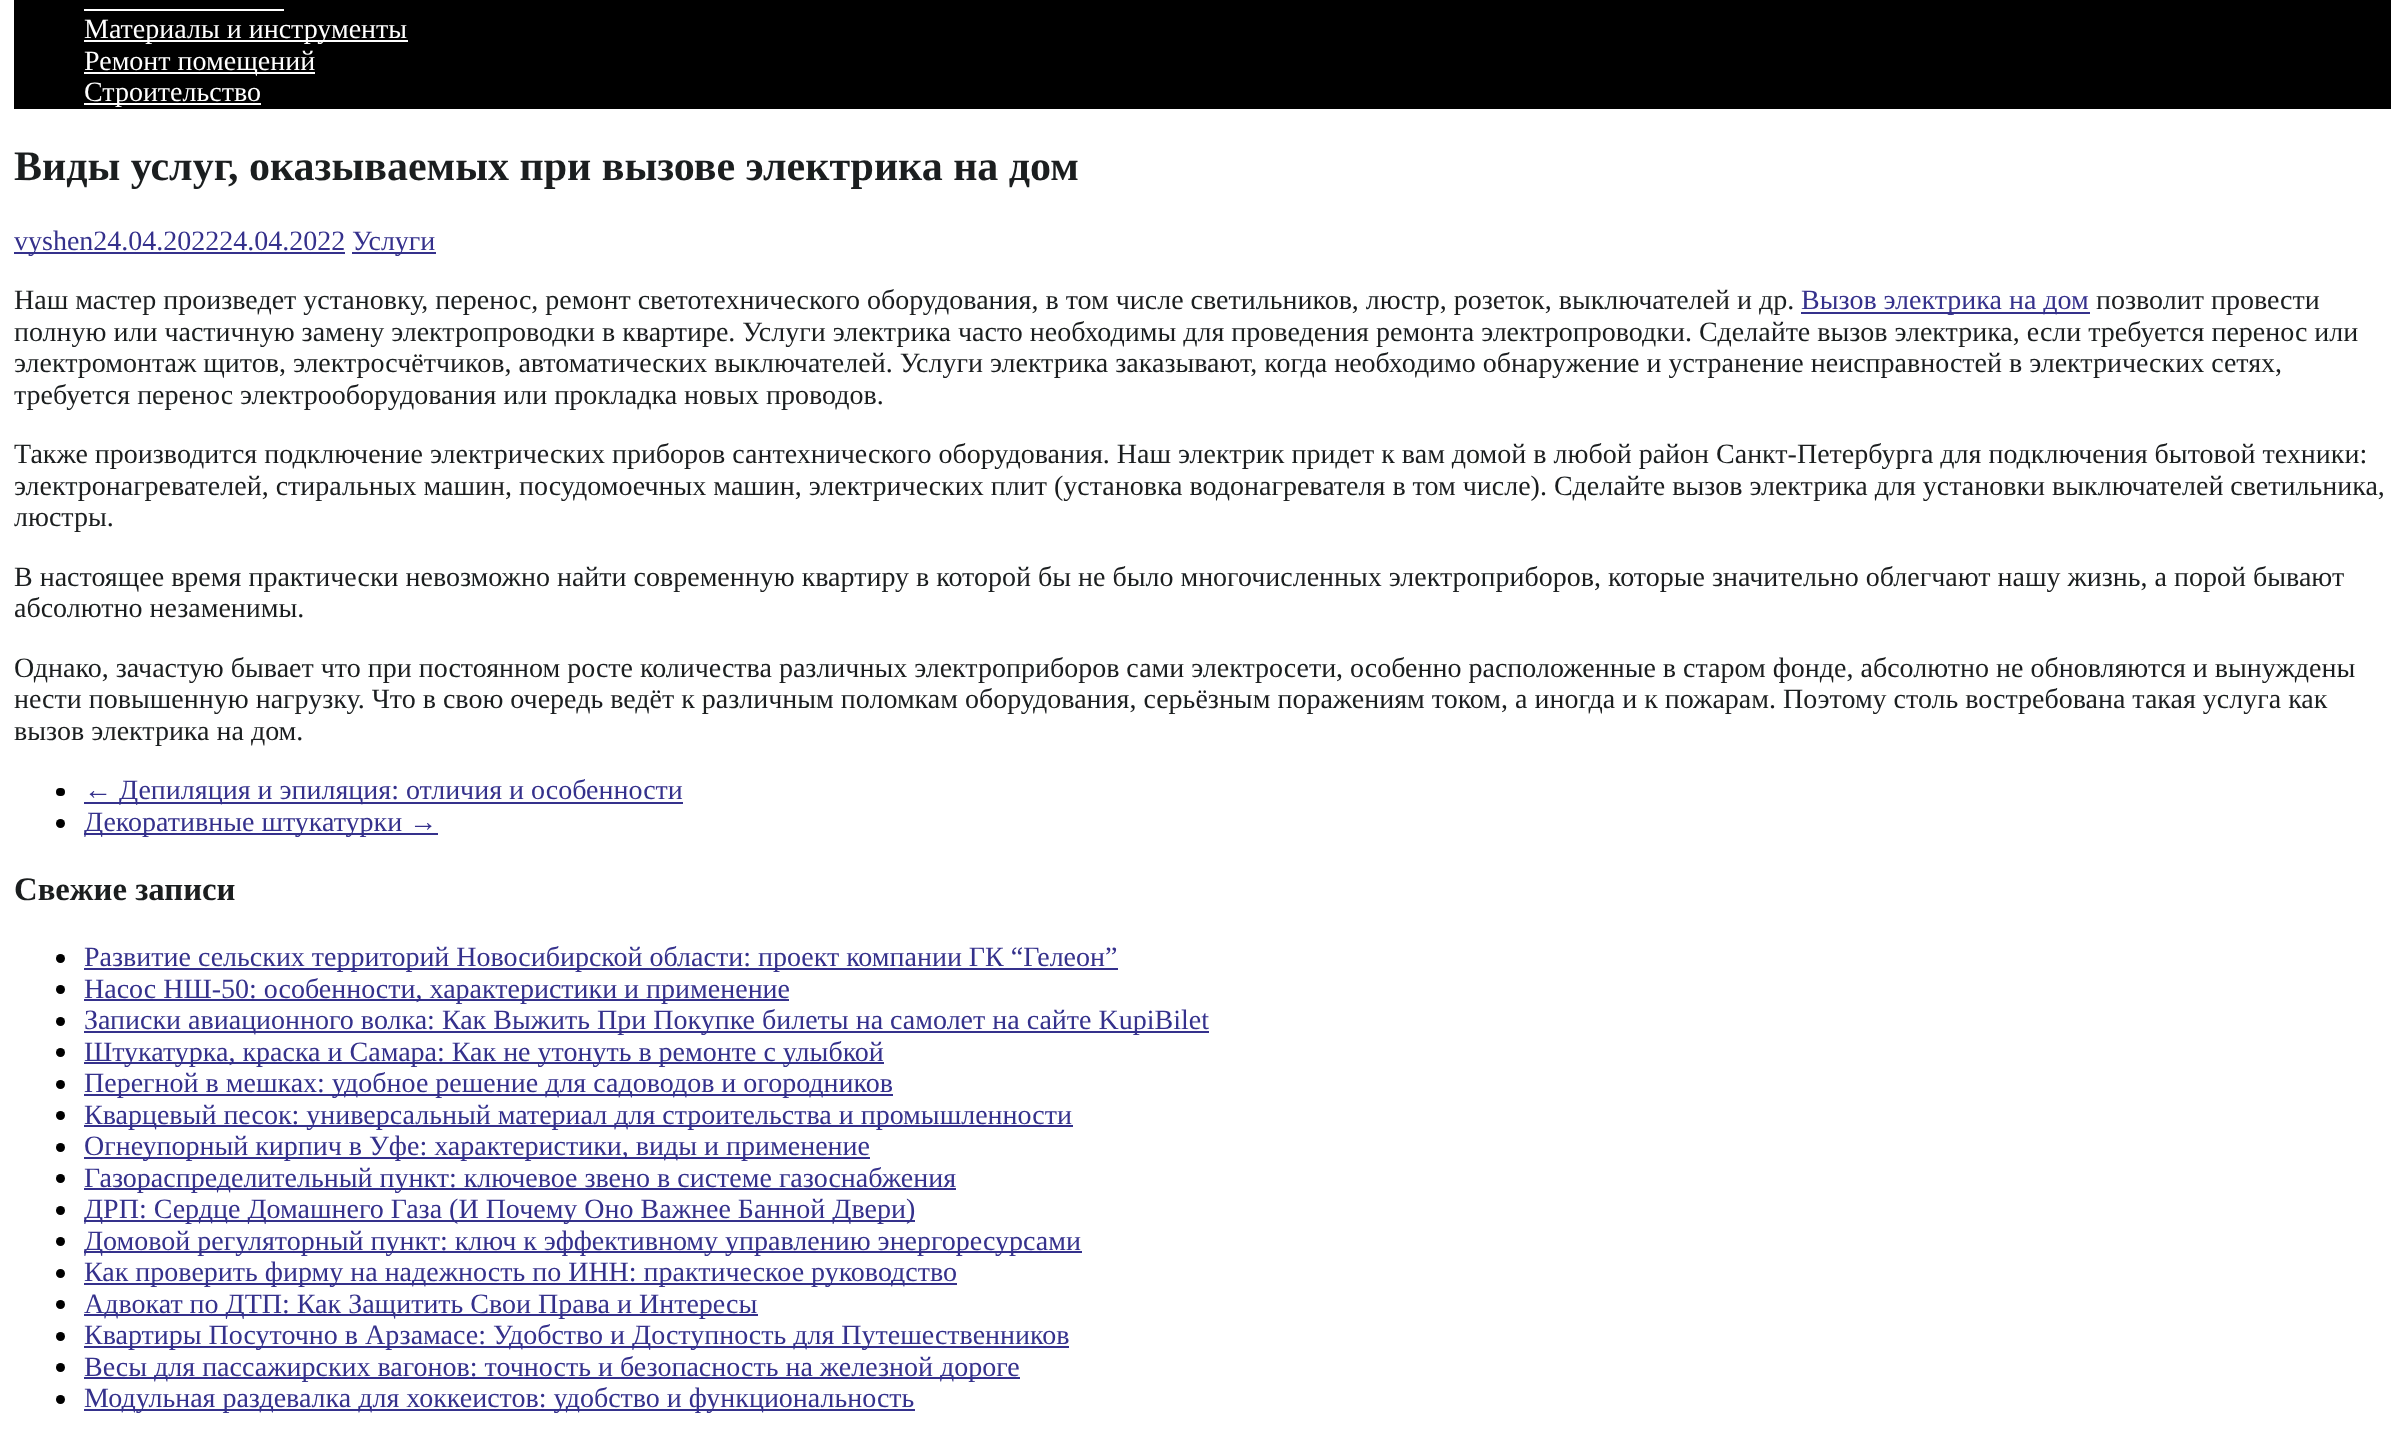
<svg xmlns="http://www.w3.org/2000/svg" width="2404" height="1442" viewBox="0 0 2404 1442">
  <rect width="100%" height="100%" fill="rgb(255,255,255)"/>
  <rect x="14" y="0" width="2377" height="109" fill="rgb(0,0,0)"/>
  <rect x="84" y="9" width="200" height="2" fill="rgb(255,255,255)"/>
  <rect x="84" y="40" width="324" height="2" fill="rgb(255,255,255)"/>
  <text x="84" y="38" font-family="Liberation Serif" font-size="28" fill="rgb(255,255,255)">Материалы и инструменты</text>
  <rect x="84" y="72" width="231" height="2" fill="rgb(255,255,255)"/>
  <text x="84" y="70" font-family="Liberation Serif" font-size="28" fill="rgb(255,255,255)">Ремонт помещений</text>
  <rect x="84" y="103" width="177" height="2" fill="rgb(255,255,255)"/>
  <text x="84" y="101" font-family="Liberation Serif" font-size="28" fill="rgb(255,255,255)">Строительство</text>
  <text x="14" y="180" font-family="Liberation Serif" font-size="42" font-weight="bold" fill="rgb(27,30,31)">Виды услуг, оказываемых при вызове электрика на дом</text>
  <rect x="14" y="252" width="331" height="2" fill="rgb(53,49,140)"/>
  <text x="14" y="250" font-family="Liberation Serif" font-size="28" fill="rgb(53,49,140)">vyshen24.04.202224.04.2022</text>
  <rect x="352" y="252" width="84" height="2" fill="rgb(53,49,140)"/>
  <text x="352" y="250" font-family="Liberation Serif" font-size="28" fill="rgb(53,49,140)">Услуги</text>
  <text x="14" y="309" font-family="Liberation Serif" font-size="28" fill="rgb(27,30,31)">Наш мастер произведет установку, перенос, ремонт светотехнического оборудования, в том числе светильников, люстр, розеток, выключателей и др.</text>
  <rect x="1801" y="312" width="289" height="2" fill="rgb(53,49,140)"/>
  <text x="1801" y="309" font-family="Liberation Serif" font-size="28" fill="rgb(53,49,140)">Вызов электрика на дом</text>
  <g font-family="Liberation Serif" font-size="28" fill="rgb(27,30,31)">
    <text x="2096" y="309">позволит провести</text>
    <text>
      <tspan x="14" y="341">полную или частичную замену электропроводки в квартире. Услуги электрика часто необходимы для проведения ремонта электропроводки. Сделайте вызов электрика, если требуется перенос или</tspan>
      <tspan x="14" y="372">электромонтаж щитов, электросчётчиков, автоматических выключателей. Услуги электрика заказывают, когда необходимо обнаружение и устранение неисправностей в электрических сетях,</tspan>
      <tspan x="14" y="404">требуется перенос электрооборудования или прокладка новых проводов.</tspan>
    </text>
    <text>
      <tspan x="14" y="463">Также производится подключение электрических приборов сантехнического оборудования. Наш электрик придет к вам домой в любой район Санкт-Петербурга для подключения бытовой техники:</tspan>
      <tspan x="14" y="495">электронагревателей, стиральных машин, посудомоечных машин, электрических плит (установка водонагревателя в том числе). Сделайте вызов электрика для установки выключателей светильника,</tspan>
      <tspan x="14" y="526">люстры.</tspan>
    </text>
    <text>
      <tspan x="14" y="586">В настоящее время практически невозможно найти современную квартиру в которой бы не было многочисленных электроприборов, которые значительно облегчают нашу жизнь, а порой бывают</tspan>
      <tspan x="14" y="617">абсолютно незаменимы.</tspan>
    </text>
    <text>
      <tspan x="14" y="677">Однако, зачастую бывает что при постоянном росте количества различных электроприборов сами электросети, особенно расположенные в старом фонде, абсолютно не обновляются и вынуждены</tspan>
      <tspan x="14" y="708">нести повышенную нагрузку. Что в свою очередь ведёт к различным поломкам оборудования, серьёзным поражениям током, а иногда и к пожарам. Поэтому столь востребована такая услуга как</tspan>
      <tspan x="14" y="740">вызов электрика на дом.</tspan>
    </text>
  </g>
  <rect x="56" y="788" width="9" height="8" rx="4" fill="rgb(0,0,0)"/>
  <rect x="84" y="802" width="599" height="2" fill="rgb(53,49,140)"/>
  <text x="84" y="799" font-family="Liberation Serif" font-size="28" fill="rgb(53,49,140)">← Депиляция и эпиляция: отличия и особенности</text>
  <circle cx="60.5" cy="823.5" r="4.5" fill="rgb(0,0,0)"/>
  <rect x="84" y="833" width="354" height="2" fill="rgb(53,49,140)"/>
  <text x="84" y="831" font-family="Liberation Serif" font-size="28" fill="rgb(53,49,140)">Декоративные штукатурки →</text>
  <text x="14" y="900" font-family="Liberation Serif" font-size="32.75" font-weight="bold" fill="rgb(27,30,31)">Свежие записи</text>
  <circle cx="60.5" cy="958.5" r="4.5" fill="rgb(0,0,0)"/>
  <rect x="84" y="968" width="1034" height="2" fill="rgb(53,49,140)"/>
  <text x="84" y="966" font-family="Liberation Serif" font-size="28" fill="rgb(53,49,140)">Развитие сельских территорий Новосибирской области: проект компании ГК “Гелеон”</text>
  <circle cx="60.5" cy="989.5" r="4.5" fill="rgb(0,0,0)"/>
  <rect x="84" y="999" width="705" height="2" fill="rgb(53,49,140)"/>
  <text x="84" y="998" font-family="Liberation Serif" font-size="28" fill="rgb(53,49,140)">Насос НШ-50: особенности, характеристики и применение</text>
  <circle cx="60.5" cy="1021.5" r="4.5" fill="rgb(0,0,0)"/>
  <rect x="84" y="1031" width="1125" height="2" fill="rgb(53,49,140)"/>
  <text x="84" y="1029" font-family="Liberation Serif" font-size="28" fill="rgb(53,49,140)">Записки авиационного волка: Как Выжить При Покупке билеты на самолет на сайте KupiBilet</text>
  <circle cx="60.5" cy="1052.5" r="4.5" fill="rgb(0,0,0)"/>
  <rect x="84" y="1062" width="800" height="2" fill="rgb(53,49,140)"/>
  <text x="84" y="1061" font-family="Liberation Serif" font-size="28" fill="rgb(53,49,140)">Штукатурка, краска и Самара: Как не утонуть в ремонте с улыбкой</text>
  <circle cx="60.5" cy="1084.5" r="4.5" fill="rgb(0,0,0)"/>
  <rect x="84" y="1094" width="809" height="2" fill="rgb(53,49,140)"/>
  <text x="84" y="1092" font-family="Liberation Serif" font-size="28" fill="rgb(53,49,140)">Перегной в мешках: удобное решение для садоводов и огородников</text>
  <circle cx="60.5" cy="1115.5" r="4.5" fill="rgb(0,0,0)"/>
  <rect x="84" y="1125" width="989" height="2" fill="rgb(53,49,140)"/>
  <text x="84" y="1124" font-family="Liberation Serif" font-size="28" fill="rgb(53,49,140)">Кварцевый песок: универсальный материал для строительства и промышленности</text>
  <circle cx="60.5" cy="1147.5" r="4.5" fill="rgb(0,0,0)"/>
  <rect x="84" y="1157" width="786" height="2" fill="rgb(53,49,140)"/>
  <text x="84" y="1155" font-family="Liberation Serif" font-size="28" fill="rgb(53,49,140)">Огнеупорный кирпич в Уфе: характеристики, виды и применение</text>
  <circle cx="60.5" cy="1178.5" r="4.5" fill="rgb(0,0,0)"/>
  <rect x="84" y="1188" width="872" height="2" fill="rgb(53,49,140)"/>
  <text x="84" y="1187" font-family="Liberation Serif" font-size="28" fill="rgb(53,49,140)">Газораспределительный пункт: ключевое звено в системе газоснабжения</text>
  <circle cx="60.5" cy="1210.5" r="4.5" fill="rgb(0,0,0)"/>
  <rect x="84" y="1220" width="831" height="2" fill="rgb(53,49,140)"/>
  <text x="84" y="1218" font-family="Liberation Serif" font-size="28" fill="rgb(53,49,140)">ДРП: Сердце Домашнего Газа (И Почему Оно Важнее Банной Двери)</text>
  <circle cx="60.5" cy="1241.5" r="4.5" fill="rgb(0,0,0)"/>
  <rect x="84" y="1251" width="998" height="2" fill="rgb(53,49,140)"/>
  <text x="84" y="1250" font-family="Liberation Serif" font-size="28" fill="rgb(53,49,140)">Домовой регуляторный пункт: ключ к эффективному управлению энергоресурсами</text>
  <circle cx="60.5" cy="1273.5" r="4.5" fill="rgb(0,0,0)"/>
  <rect x="84" y="1283" width="873" height="2" fill="rgb(53,49,140)"/>
  <text x="84" y="1281" font-family="Liberation Serif" font-size="28" fill="rgb(53,49,140)">Как проверить фирму на надежность по ИНН: практическое руководство</text>
  <circle cx="60.5" cy="1304.5" r="4.5" fill="rgb(0,0,0)"/>
  <rect x="84" y="1314" width="674" height="2" fill="rgb(53,49,140)"/>
  <text x="84" y="1313" font-family="Liberation Serif" font-size="28" fill="rgb(53,49,140)">Адвокат по ДТП: Как Защитить Свои Права и Интересы</text>
  <circle cx="60.5" cy="1336.5" r="4.5" fill="rgb(0,0,0)"/>
  <rect x="84" y="1346" width="985" height="2" fill="rgb(53,49,140)"/>
  <text x="84" y="1344" font-family="Liberation Serif" font-size="28" fill="rgb(53,49,140)">Квартиры Посуточно в Арзамасе: Удобство и Доступность для Путешественников</text>
  <circle cx="60.5" cy="1367.5" r="4.5" fill="rgb(0,0,0)"/>
  <rect x="84" y="1377" width="936" height="2" fill="rgb(53,49,140)"/>
  <text x="84" y="1376" font-family="Liberation Serif" font-size="28" fill="rgb(53,49,140)">Весы для пассажирских вагонов: точность и безопасность на железной дороге</text>
  <circle cx="60.5" cy="1399.5" r="4.5" fill="rgb(0,0,0)"/>
  <rect x="84" y="1409" width="831" height="2" fill="rgb(53,49,140)"/>
  <text x="84" y="1407" font-family="Liberation Serif" font-size="28" fill="rgb(53,49,140)">Модульная раздевалка для хоккеистов: удобство и функциональность</text>
</svg>
